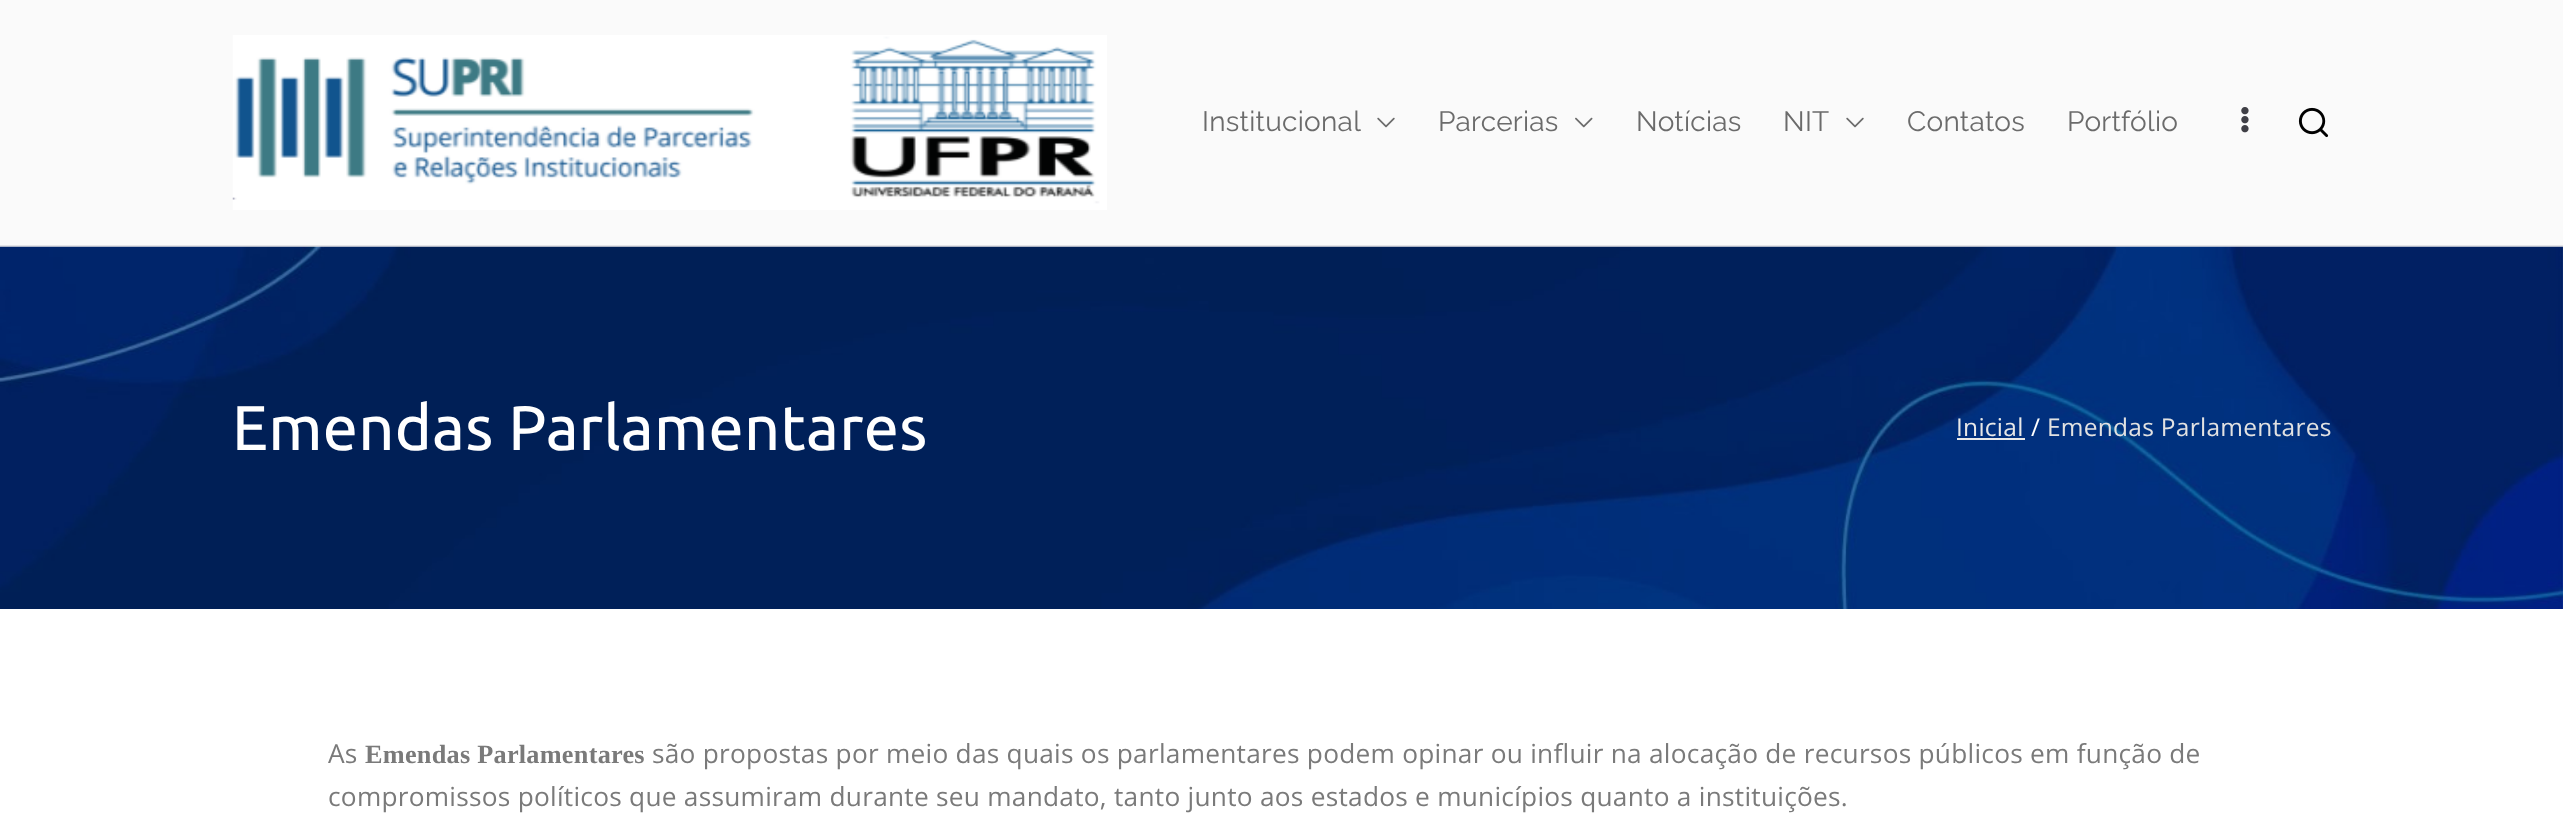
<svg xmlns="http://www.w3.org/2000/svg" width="2563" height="815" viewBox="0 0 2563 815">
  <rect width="100%" height="100%" fill="rgb(250,250,250)"/>
  <rect x="0" y="245" width="2563" height="2" fill="rgb(228,228,231)"/>
  <image x="232" y="35" width="875" height="175" href="pic1.png"/>
  <text x="1202" y="131" font-family="Raleway" font-size="28" font-weight="100" letter-spacing="0.26" fill="rgb(107,107,107)">Institucional</text>
  <image x="1377" y="117" width="18" height="11" href="pic2.png"/>
  <text x="1438" y="131" font-family="Raleway" font-size="28" font-weight="100" letter-spacing="0.26" fill="rgb(107,107,107)">Parcerias</text>
  <image x="1575" y="117" width="18" height="11" href="pic3.png"/>
  <g font-family="Raleway" font-size="28" font-weight="100" letter-spacing="0.26" fill="rgb(107,107,107)">
    <text x="1636" y="131">Notícias</text>
    <text x="1783" y="131">NIT</text>
  </g>
  <image x="1846" y="117" width="18" height="11" href="pic2.png"/>
  <g font-family="Raleway" font-size="28" font-weight="100" letter-spacing="0.26" fill="rgb(107,107,107)">
    <text x="1907" y="131">Contatos</text>
    <text x="2067" y="131">Portfólio</text>
  </g>
  <image x="2241" y="107" width="8" height="26" href="pic4.png"/>
  <image x="2298" y="107" width="31" height="31" href="pic5.png"/>
  <image x="0" y="246" width="2563" height="363" href="pic6.png"/>
  <text x="232" y="450" font-family="Ubuntu" font-size="63" letter-spacing="0.26" fill="rgb(255,255,255)">Emendas Parlamentares</text>
  <text x="1956" y="436" font-family="Open Sans" font-size="24.5" letter-spacing="0.26" fill="rgb(232,232,232)">Inicial</text>
  <rect x="1957" y="438" width="68" height="2" fill="rgb(232,232,232)"/>
  <text x="2031" y="436" font-family="Open Sans" font-size="24.5" letter-spacing="0.26" fill="rgb(255,255,255)">/</text>
  <text x="2047" y="436" font-family="Open Sans" font-size="24.5" letter-spacing="0.26" fill="rgb(226,226,226)">Emendas Parlamentares</text>
  <rect x="0" y="609" width="2563" height="206" fill="rgb(255,255,255)"/>
  <text x="328" y="763" font-family="Open Sans" font-size="26.25" letter-spacing="0.26" fill="rgb(122,122,122)">As</text>
  <text x="365" y="763" font-family="Liberation Serif" font-size="26.25" font-weight="bold" letter-spacing="0.26" fill="rgb(122,122,122)">Emendas Parlamentares</text>
  <g font-family="Open Sans" font-size="26.25" letter-spacing="0.26" fill="rgb(122,122,122)">
    <text x="652" y="763">são propostas por meio das quais os parlamentares podem opinar ou influir na alocação de recursos públicos em função de</text>
    <text x="328" y="806">compromissos políticos que assumiram durante seu mandato, tanto junto aos estados e municípios quanto a instituições.</text>
  </g>
</svg>
